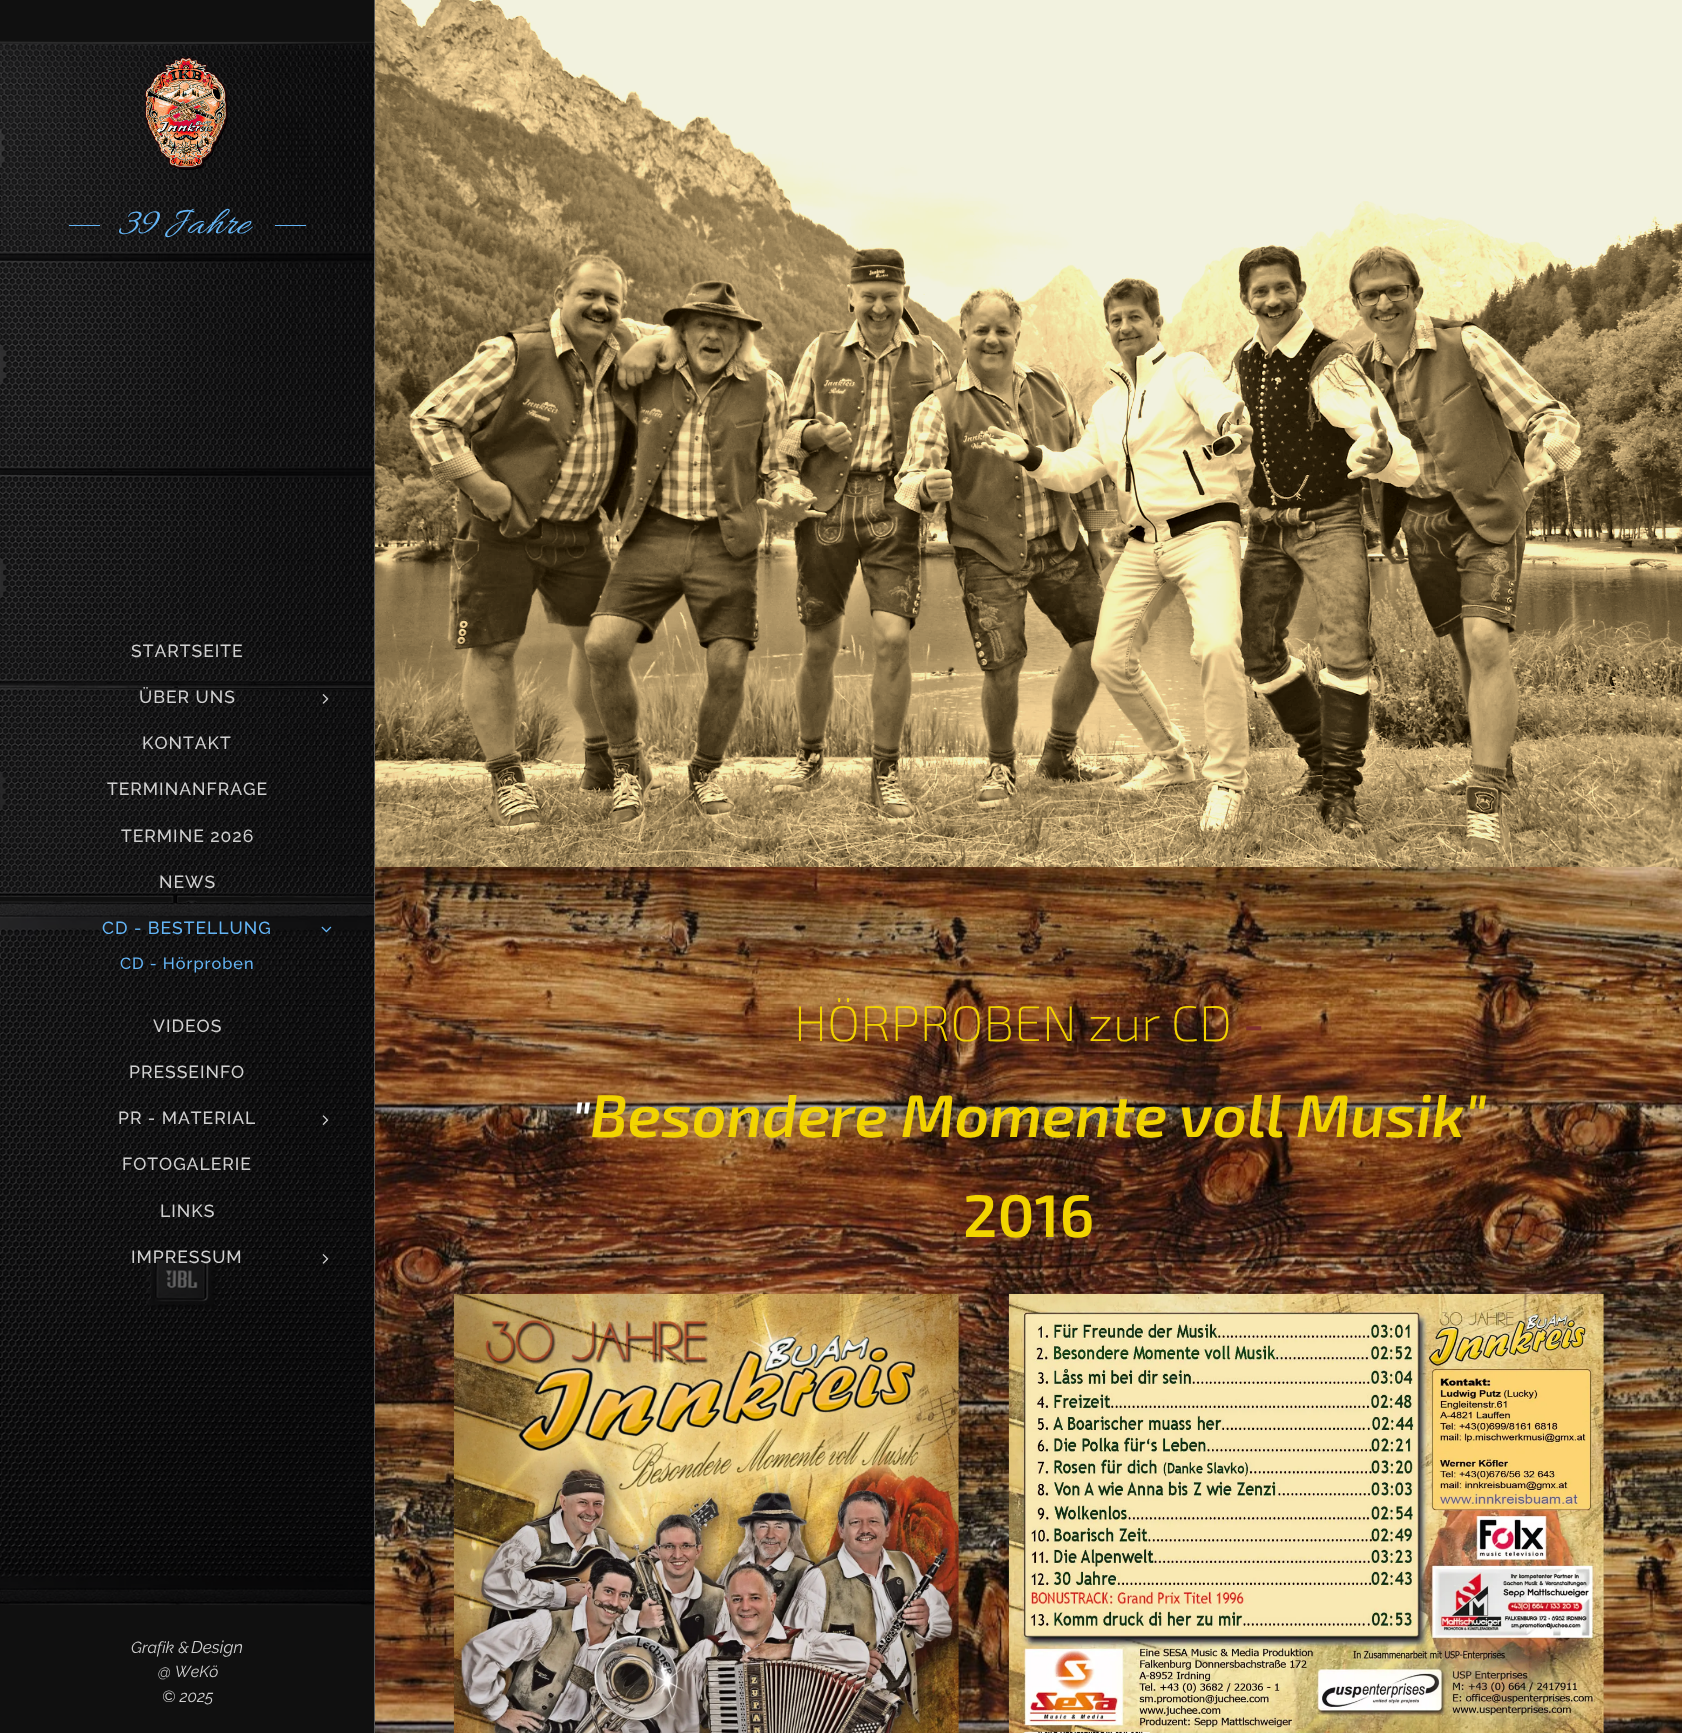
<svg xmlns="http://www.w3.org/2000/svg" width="1682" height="1733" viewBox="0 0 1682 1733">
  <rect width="100%" height="100%" fill="rgb(255,255,255)"/>
  <rect x="0" y="0" width="375" height="1733" fill="rgb(16,16,16)"/>
  <image x="0" y="41" width="375" height="1565" href="pic1.png"/>
  <image x="145" y="57" width="83" height="113" href="pic2.png"/>
  <rect x="69" y="225" width="31" height="1" fill="rgb(100,181,246)"/>
  <text x="118" y="233" font-family="Allura" font-size="40" font-style="italic" fill="rgb(100,181,246)">39 Jahre</text>
  <rect x="275" y="225" width="31" height="1" fill="rgb(100,181,246)"/>
  <g font-family="Raleway" font-size="17.5" font-weight="500" letter-spacing="1" fill="rgb(208,208,208)">
    <text x="131" y="657">STARTSEITE</text>
    <text x="139" y="703">ÜBER UNS</text>
  </g>
  <image x="322" y="694" width="7" height="10" href="pic3.png"/>
  <g font-family="Raleway" font-size="17.5" font-weight="500" letter-spacing="1" fill="rgb(208,208,208)">
    <text x="142" y="749">KONTAKT</text>
    <text x="107" y="795">TERMINANFRAGE</text>
    <text x="121" y="842">TERMINE 2026</text>
    <text x="159" y="888">NEWS</text>
  </g>
  <text x="102" y="934" font-family="Raleway" font-size="17.5" font-weight="500" letter-spacing="1" fill="rgb(100,181,246)">CD - BESTELLUNG</text>
  <image x="321" y="926" width="11" height="7" href="pic4.png"/>
  <text x="120" y="969" font-family="Raleway" font-size="16.25" font-weight="500" letter-spacing="1" fill="rgb(100,181,246)">CD - Hörproben</text>
  <g font-family="Raleway" font-size="17.5" font-weight="500" letter-spacing="1" fill="rgb(208,208,208)">
    <text x="153" y="1032">VIDEOS</text>
    <text x="129" y="1078">PRESSEINFO</text>
    <text x="118" y="1124">PR - MATERIAL</text>
  </g>
  <image x="322" y="1115" width="7" height="10" href="pic5.png"/>
  <g font-family="Raleway" font-size="17.5" font-weight="500" letter-spacing="1" fill="rgb(208,208,208)">
    <text x="122" y="1170">FOTOGALERIE</text>
    <text x="160" y="1217">LINKS</text>
    <text x="131" y="1263">IMPRESSUM</text>
  </g>
  <image x="322" y="1254" width="7" height="10" href="pic6.png"/>
  <rect x="374" y="0" width="1" height="1733" fill="rgba(255,255,255,0.3)"/>
  <image x="375" y="0" width="1307" height="867" href="pic7.png"/>
  <image x="375" y="867" width="1307" height="866" href="pic8.png"/>
  <text x="794" y="1041" font-family="'Exo 2'" font-size="50" font-weight="200" fill="rgb(242,212,0)">HÖRPROBEN zur CD</text>
  <text x="1243" y="1041" font-family="'Exo 2'" font-size="50" font-weight="600" fill="rgb(127,46,45)">-</text>
  <text x="572" y="1137" font-family="'Exo 2'" font-size="50" font-weight="600" font-style="italic" fill="rgb(255,255,255)">"</text>
  <text x="590" y="1137" font-family="'Exo 2'" font-size="60" font-weight="600" font-style="italic" fill="rgb(242,212,0)">Besondere Momente voll Musik"</text>
  <text x="963" y="1237" font-family="'Exo 2'" font-size="60" font-weight="600" fill="rgb(242,212,0)">2016</text>
  <image x="453" y="1293" width="506" height="440" href="pic9.png"/>
  <image x="1008" y="1293" width="596" height="440" href="pic10.png"/>
  <text x="131" y="1653" font-family="Raleway" font-size="16" font-style="italic" fill="rgb(208,208,208)">Grafik &amp;</text>
  <text x="191" y="1653" font-family="Raleway" font-size="17" font-style="italic" fill="rgb(208,208,208)">Design</text>
  <g font-family="Raleway" font-size="16" font-style="italic" fill="rgb(208,208,208)">
    <text x="158" y="1677">@ WeKö</text>
    <text x="162" y="1702">© 2025</text>
  </g>
</svg>
